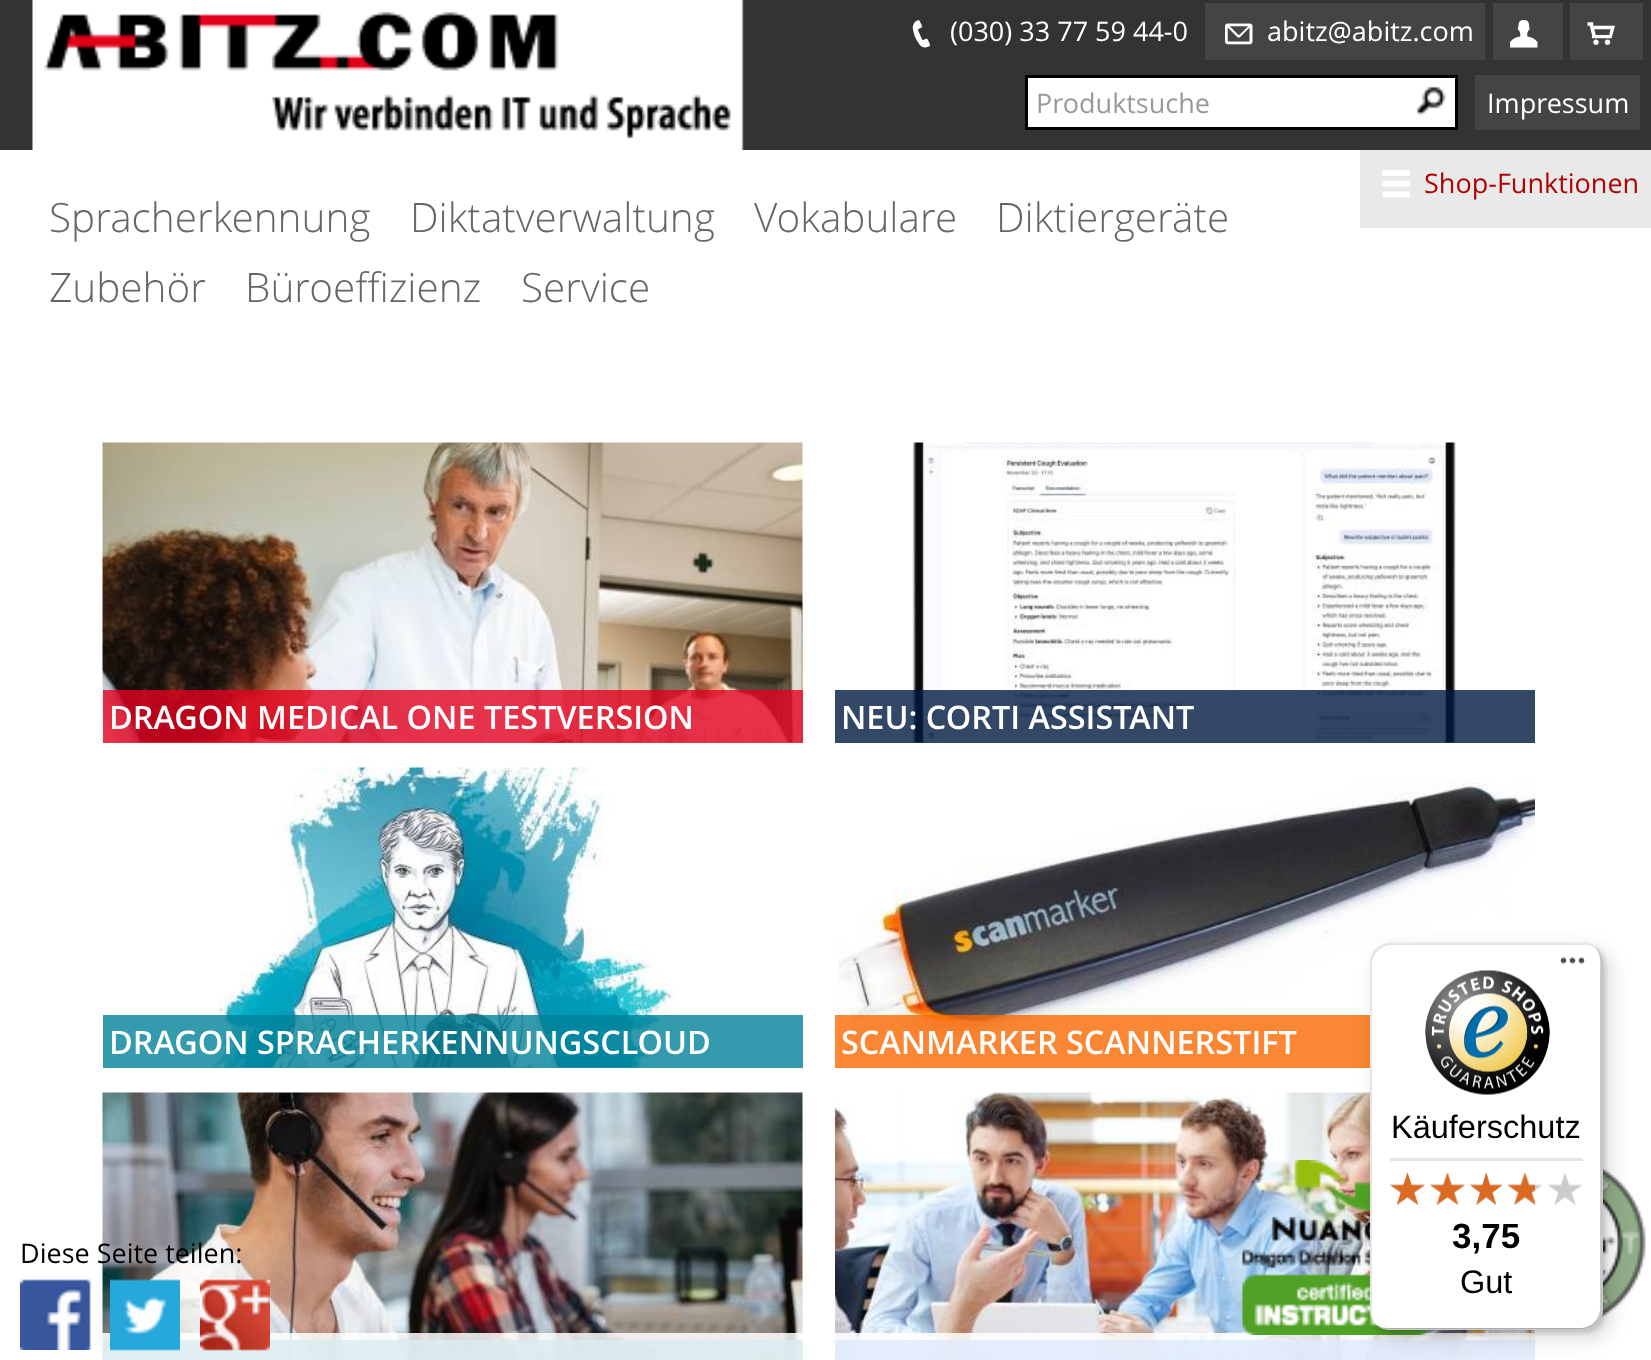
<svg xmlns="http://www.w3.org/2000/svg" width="1651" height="1360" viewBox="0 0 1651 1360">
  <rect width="100%" height="100%" fill="rgb(255,255,255)"/>
  <rect x="0" y="0" width="1651" height="150" fill="rgb(51,51,51)"/>
  <image x="32" y="0" width="712" height="150" href="pic1.png"/>
  <image x="912" y="20" width="18" height="28" href="pic2.png"/>
  <rect x="1205" y="3" width="280" height="57" fill="rgb(68,68,68)"/>
  <text x="1267" y="41" font-family="Open Sans" font-size="27" fill="rgb(255,255,255)">abitz@abitz.com</text>
  <rect x="1493" y="3" width="70" height="57" fill="rgb(68,68,68)"/>
  <rect x="1570" y="3" width="73" height="57" fill="rgb(68,68,68)"/>
  <text x="950" y="41" font-family="Open Sans" font-size="27" fill="rgb(255,255,255)">(030) 33 77 59 44-0</text>
  <image x="1225" y="23" width="28" height="22" href="pic3.png"/>
  <image x="1510" y="20" width="28" height="28" href="pic4.png"/>
  <image x="1587" y="22" width="28" height="23" href="pic5.png"/>
  <rect x="1026.5" y="76.5" width="430" height="52" fill="rgb(255,255,255)" stroke="rgb(0,0,0)" stroke-width="3"/>
  <text x="1036" y="113" font-family="Open Sans" font-size="27" fill="rgb(153,153,153)">Produktsuche</text>
  <image x="1416" y="86" width="30" height="30" href="pic6.png"/>
  <rect x="1475" y="75" width="165" height="55" fill="rgb(68,68,68)"/>
  <text x="1487" y="113" font-family="Open Sans" font-size="27" fill="rgb(255,255,255)">Impressum</text>
  <rect x="1360" y="150" width="291" height="78" fill="rgb(233,233,233)"/>
  <image x="1382" y="170" width="28" height="28" href="pic7.png"/>
  <text x="1424" y="193" font-family="Open Sans" font-size="27" fill="rgb(173,4,4)">Shop-Funktionen</text>
  <g font-family="Open Sans" font-size="40.5" font-weight="300" fill="rgb(102,102,102)">
    <text x="49" y="232">Spracherkennung</text>
    <text x="410" y="232">Diktatverwaltung</text>
    <text x="754" y="232">Vokabulare</text>
    <text x="996" y="232">Diktiergeräte</text>
    <text x="49" y="302">Zubehör</text>
    <text x="245" y="302">Büroeffizienz</text>
    <text x="521" y="302">Service</text>
  </g>
  <image x="102" y="442" width="701" height="301" href="pic8.png"/>
  <rect x="103" y="690" width="700" height="53" fill="rgba(228,1,31,0.8)"/>
  <text x="109" y="729" font-family="Open Sans" font-size="32.4" font-weight="600" fill="rgb(255,255,255)">DRAGON MEDICAL ONE TESTVERSION</text>
  <image x="912" y="442" width="544" height="301" href="pic9.png"/>
  <rect x="835" y="690" width="700" height="53" fill="rgba(0,25,64,0.8)"/>
  <text x="841" y="729" font-family="Open Sans" font-size="32.4" font-weight="600" fill="rgb(255,255,255)">NEU: CORTI ASSISTANT</text>
  <image x="209" y="767" width="468" height="301" href="pic10.png"/>
  <rect x="103" y="1015" width="700" height="53" fill="rgba(0,130,153,0.8)"/>
  <text x="109" y="1054" font-family="Open Sans" font-size="32.4" font-weight="600" fill="rgb(255,255,255)">DRAGON SPRACHERKENNUNGSCLOUD</text>
  <image x="838" y="782" width="697" height="277" href="pic11.png"/>
  <rect x="835" y="1015" width="535" height="53" fill="rgba(250,104,0,0.8)"/>
  <text x="841" y="1054" font-family="Open Sans" font-size="32.4" font-weight="600" fill="rgb(255,255,255)">SCANMARKER SCANNERSTIFT</text>
  <image x="102" y="1092" width="701" height="268" href="pic12.png"/>
  <rect x="103" y="1340" width="700" height="20" fill="rgba(0,130,153,0.8)"/>
  <image x="835" y="1092" width="700" height="268" href="pic13.png"/>
  <rect x="835" y="1340" width="700" height="20" fill="rgba(38,114,236,0.8)"/>
  <rect x="102" y="1333" width="1433" height="27" fill="rgba(255,255,255,0.85)"/>
  <text x="20" y="1263" font-family="Open Sans" font-size="27" fill="rgb(0,0,0)">Diese Seite teilen:</text>
  <image x="20" y="1279" width="71" height="71" href="pic14.png"/>
  <image x="110" y="1279" width="70" height="72" href="pic15.png"/>
  <image x="200" y="1279" width="70" height="72" href="pic16.png"/>
  <image x="1242" y="1160" width="188" height="175" href="pic17.png"/>
  <image x="1600" y="1167" width="46" height="152" href="pic18.png"/>
  <rect x="1378" y="950" width="232" height="388" rx="20" fill="rgba(0,0,0,0.15)" filter="blur(10px)"/>
  <rect x="1373" y="945" width="232" height="388" rx="20" fill="rgba(0,0,0,0.15)" filter="blur(2.5px)"/>
  <rect x="1370" y="943" width="233" height="387" rx="20" fill="rgb(255,255,255)"/>
  <path d="M1392 945H1585C1590 945 1595 947 1598 950C1595 946 1589 943 1583 943H1390C1379 943 1370 952 1370 963V1310C1370 1315 1372 1320 1376 1324C1373 1321 1372 1317 1372 1312V965C1372 954 1381 945 1392 945Z" fill="rgba(0,0,0,0.1)"/>
  <path d="M1376 1324C1380 1328 1385 1330 1390 1330H1583C1594 1330 1603 1321 1603 1310V963C1603 957 1600 951 1595 947C1598 951 1600 955 1600 960V1308C1600 1319 1591 1328 1580 1328H1388C1383 1328 1379 1327 1376 1324Z" fill="rgba(0,0,0,0.2)"/>
  <path d="M1376 1324C1380 1328 1385 1330 1390 1330H1583C1594 1330 1603 1321 1603 1310V963C1603 957 1600 951 1596 948C1599 951 1601 956 1601 961V1308C1601 1320 1592 1328 1581 1328H1388C1383 1328 1379 1327 1376 1324Z" fill="rgba(50,50,50,0.2)"/>
  <path d="M1375 1323C1379 1327 1384 1330 1390 1330H1583C1594 1330 1603 1321 1603 1310V963C1603 957 1600 951 1596 948C1599 951 1601 956 1601 961V1309C1601 1320 1592 1329 1581 1329H1389C1384 1329 1379 1327 1375 1323Z" fill="rgba(255,255,255,0.3)"/>
  <image x="1560" y="957" width="25" height="7" href="pic19.png"/>
  <image x="1425" y="970" width="125" height="125" href="pic20.png"/>
  <text x="1391" y="1138" font-family="Liberation Sans" font-size="32.5" fill="rgb(0,0,0)">Käuferschutz</text>
  <rect x="1390" y="1158" width="193" height="3" fill="rgb(229,229,229)"/>
  <image x="1390" y="1172" width="35" height="33" href="pic21.png"/>
  <image x="1430" y="1173" width="35" height="32" href="pic22.png"/>
  <image x="1470" y="1172" width="32" height="33" href="pic23.png"/>
  <image x="1508" y="1173" width="34" height="32" href="pic24.png"/>
  <image x="1548" y="1172" width="34" height="33" href="pic25.png"/>
  <image x="1390" y="1172" width="35" height="33" href="pic26.png"/>
  <image x="1430" y="1172" width="35" height="33" href="pic27.png"/>
  <image x="1470" y="1172" width="32" height="33" href="pic28.png"/>
  <image x="1507" y="1172" width="28" height="33" href="pic29.png"/>
  <text x="1452" y="1248" font-family="Liberation Sans" font-size="35" font-weight="bold" fill="rgb(0,0,0)">3,75</text>
  <text x="1460" y="1293" font-family="Liberation Sans" font-size="32.5" fill="rgb(0,0,0)">Gut</text>
</svg>
